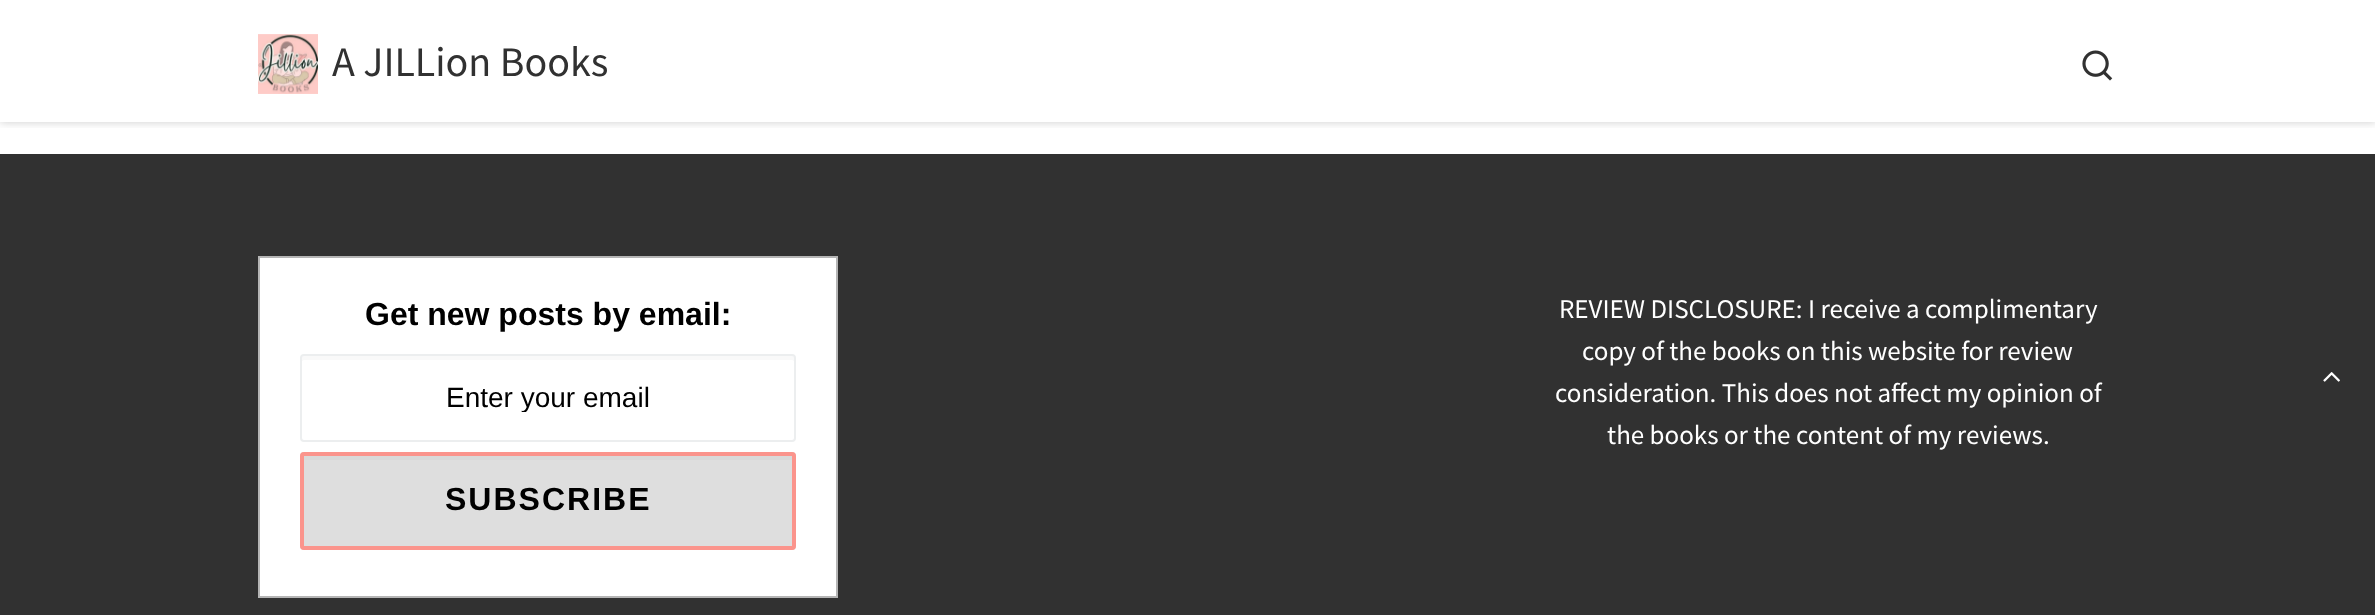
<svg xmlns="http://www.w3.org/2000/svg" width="2375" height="615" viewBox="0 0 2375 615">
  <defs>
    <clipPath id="clip1"><rect x="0" y="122" width="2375" height="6"/></clipPath>
    <clipPath id="clip2"><rect x="302" y="380" width="492" height="32"/></clipPath>
  </defs>
  <rect width="100%" height="100%" fill="rgb(255,255,255)"/>
  <g clip-path="url(#clip1)">
    <rect x="0" y="0" width="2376" height="122" fill="rgba(0,0,0,0.2)" filter="blur(5px)"/>
  </g>
  <image x="258" y="34" width="60" height="60" href="pic1.png"/>
  <text x="332" y="76" font-family="Source Sans Pro" font-size="42" fill="rgb(49,49,49)">A JILLion Books</text>
  <image x="2082" y="50" width="31" height="31" href="pic2.png"/>
  <rect x="0" y="154" width="2375" height="461" fill="rgb(49,49,49)"/>
  <rect x="259" y="257" width="578" height="340" fill="rgb(255,255,255)" stroke="rgb(181,181,181)" stroke-width="2"/>
  <text x="365" y="325" font-family="Liberation Sans" font-size="32" font-weight="bold" fill="rgb(0,0,0)">Get new posts by email:</text>
  <path d="M304 360H792C793 360 794 361 794 362V358C794 357 793 356 792 356H304C303 356 302 357 302 358V362C302 361 303 360 304 360Z" fill="rgb(249,249,249)"/>
  <rect x="301" y="355" width="494" height="86" rx="3" fill="none" stroke="rgb(236,238,239)" stroke-width="2"/>
  <g clip-path="url(#clip2)">
    <text x="446" y="407" font-family="Liberation Sans" font-size="28" fill="rgb(0,0,0)">Enter your email</text>
  </g>
  <rect x="300" y="452" width="496" height="98" rx="4" fill="rgb(222,222,222)"/>
  <rect x="304" y="456" width="488" height="4" fill="rgb(217,217,217)"/>
  <rect x="302" y="454" width="492" height="94" rx="2" fill="none" stroke="rgb(251,148,140)" stroke-width="4"/>
  <text x="445" y="510" font-family="Liberation Sans" font-size="32" font-weight="bold" letter-spacing="2" fill="rgb(0,0,0)">SUBSCRIBE</text>
  <g font-family="Source Sans Pro" font-size="27" fill="rgb(255,255,255)">
    <text x="1559" y="318">REVIEW DISCLOSURE: I receive a complimentary</text>
    <text x="1582" y="360">copy of the books on this website for review</text>
    <text x="1555" y="402">consideration. This does not affect my opinion of</text>
    <text x="1607" y="444">the books or the content of my reviews.</text>
  </g>
  <image x="2323" y="372" width="17" height="10" href="pic3.png"/>
</svg>
